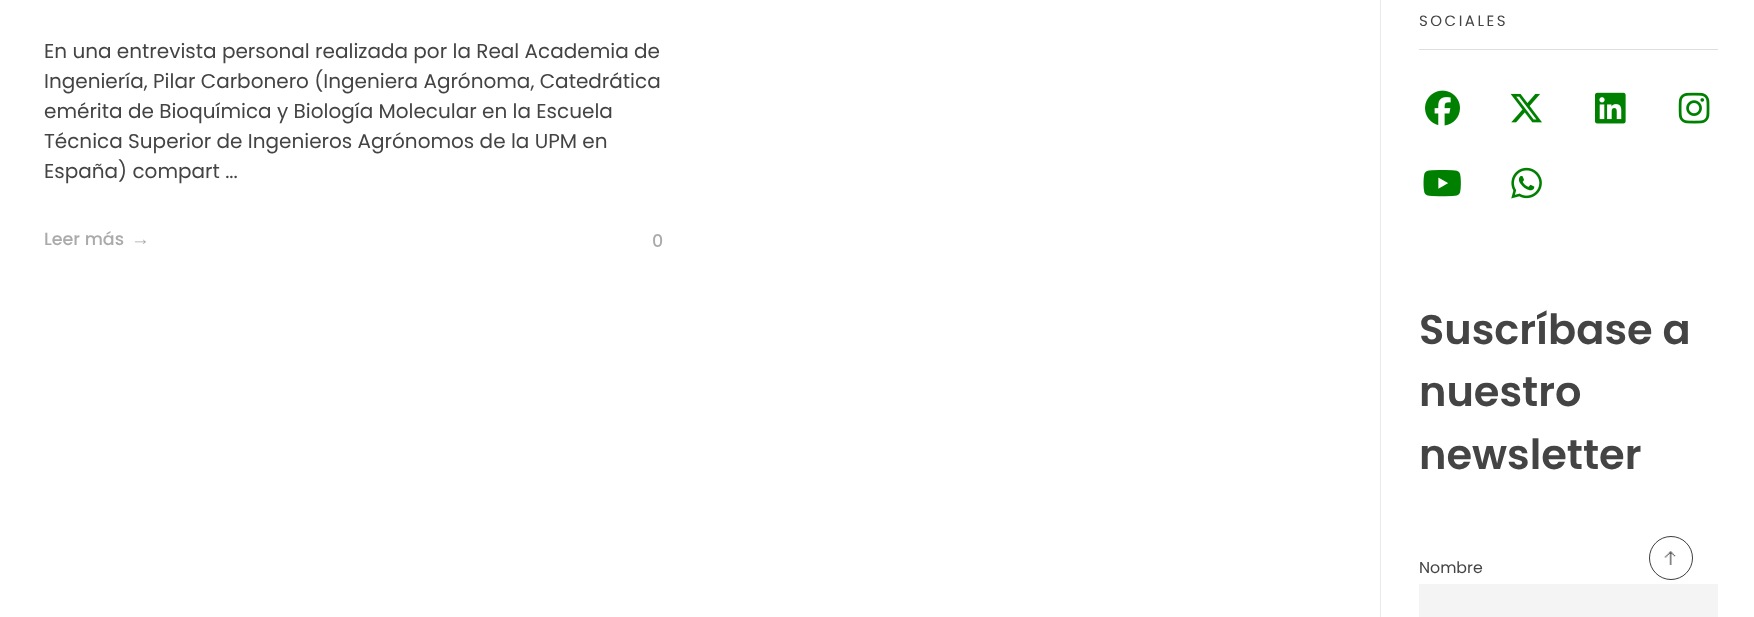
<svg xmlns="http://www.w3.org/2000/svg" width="1754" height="617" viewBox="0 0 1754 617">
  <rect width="100%" height="100%" fill="rgb(255,255,255)"/>
  <g font-family="Poppins" font-size="20" fill="rgb(68,68,68)">
    <text>
      <tspan x="44" y="58">En una entrevista personal realizada por la Real Academia de</tspan>
      <tspan x="44" y="88">Ingeniería, Pilar Carbonero (Ingeniera Agrónoma, Catedrática</tspan>
      <tspan x="44" y="118">emérita de Bioquímica y Biología Molecular en la Escuela</tspan>
      <tspan x="44" y="148">Técnica Superior de Ingenieros Agrónomos de la UPM en</tspan>
      <tspan x="44" y="178">España) compart ...</tspan>
    </text>
  </g>
  <text x="44" y="245" font-family="Poppins" font-size="17.5" font-weight="500" fill="rgb(170,170,170)">Leer más</text>
  <text x="131" y="245" font-family="Liberation Sans" font-size="19" fill="rgb(170,170,170)">→</text>
  <text x="652" y="247" font-family="Poppins" font-size="17.5" font-weight="500" fill="rgb(170,170,170)">0</text>
  <rect x="1380" y="0" width="1" height="617" fill="rgb(234,234,234)"/>
  <rect x="1419" y="49" width="299" height="1" fill="rgb(222,222,222)"/>
  <text x="1419" y="26" font-family="Poppins" font-size="15" letter-spacing="2.5" fill="rgb(68,68,68)">SOCIALES</text>
  <image x="1425" y="90" width="35" height="36" href="pic1.png"/>
  <image x="1510" y="93" width="32" height="30" href="pic2.png"/>
  <image x="1595" y="92" width="31" height="32" href="pic3.png"/>
  <image x="1678" y="92" width="32" height="32" href="pic4.png"/>
  <image x="1423" y="170" width="38" height="27" href="pic5.png"/>
  <image x="1511" y="167" width="31" height="32" href="pic6.png"/>
  <g font-family="Poppins" font-size="41.5" font-weight="600" fill="rgb(68,68,68)">
    <text>
      <tspan x="1419" y="344">Suscríbase a</tspan>
      <tspan x="1419" y="406">nuestro</tspan>
      <tspan x="1419" y="469">newsletter</tspan>
    </text>
  </g>
  <text x="1419" y="573" font-family="Poppins" font-size="15.75" fill="rgb(68,68,68)">Nombre</text>
  <rect x="1419" y="584" width="299" height="33" fill="rgb(244,244,244)"/>
  <circle cx="1671" cy="558" r="21.5" fill="none" stroke="rgb(61,61,61)"/>
  <image x="1664" y="551" width="12" height="14" href="pic7.png"/>
</svg>
